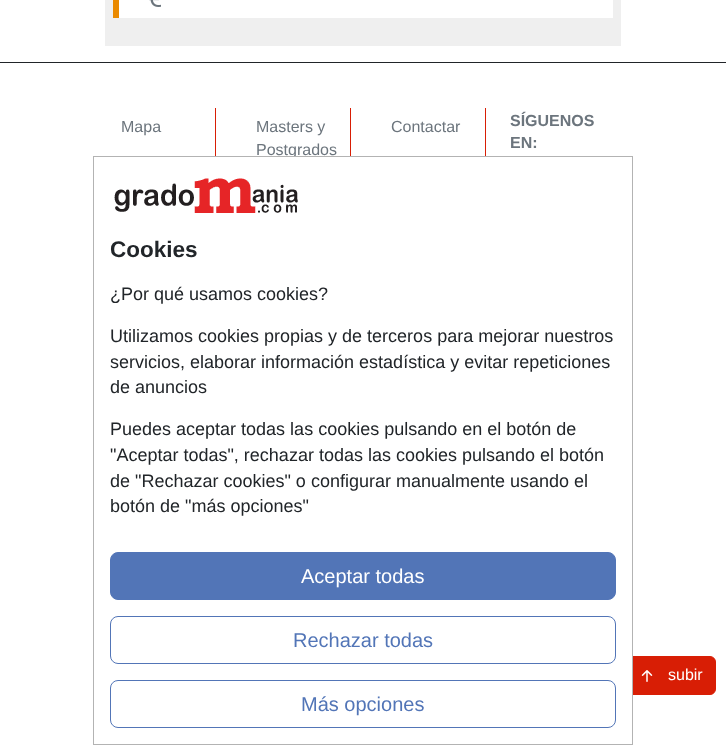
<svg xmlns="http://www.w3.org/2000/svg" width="726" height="745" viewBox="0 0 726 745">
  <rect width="100%" height="100%" fill="rgb(255,255,255)"/>
  <rect x="0" y="62" width="726" height="1" fill="rgb(33,37,41)"/>
  <rect x="215" y="108" width="1" height="48" fill="rgb(216,30,5)"/>
  <text x="121" y="132" font-family="Liberation Sans" font-size="16" fill="rgb(108,117,125)">Mapa</text>
  <rect x="350" y="108" width="1" height="48" fill="rgb(216,30,5)"/>
  <g font-family="Liberation Sans" font-size="16" fill="rgb(108,117,125)">
    <text>
      <tspan x="256" y="132">Masters y</tspan>
      <tspan x="256" y="155">Postgrados</tspan>
    </text>
  </g>
  <rect x="485" y="108" width="1" height="48" fill="rgb(216,30,5)"/>
  <text x="391" y="132" font-family="Liberation Sans" font-size="16" fill="rgb(108,117,125)">Contactar</text>
  <g font-family="Liberation Sans" font-size="16" font-weight="bold" fill="rgb(108,117,125)">
    <text>
      <tspan x="510" y="126">SÍGUENOS</tspan>
      <tspan x="510" y="148">EN:</tspan>
    </text>
  </g>
  <rect x="622.5" y="656.5" width="93" height="38" rx="5.5" fill="rgb(216,30,5)" stroke="rgb(216,30,5)"/>
  <rect x="289" y="157" width="343" height="538" fill="rgb(255,255,255)"/>
  <rect x="93.5" y="156.5" width="539" height="588" fill="none" stroke="rgb(179,179,179)"/>
  <image x="114" y="178" width="184" height="35" href="pic1.png"/>
  <text x="110" y="257" font-family="Liberation Sans" font-size="22.5" font-weight="bold" fill="rgb(33,37,41)">Cookies</text>
  <g font-family="Liberation Sans" font-size="18" fill="rgb(33,37,41)">
    <text x="110" y="300">¿Por qué usamos cookies?</text>
    <text>
      <tspan x="110" y="342">Utilizamos cookies propias y de terceros para mejorar nuestros</tspan>
      <tspan x="110" y="368">servicios, elaborar información estadística y evitar repeticiones</tspan>
      <tspan x="110" y="393">de anuncios</tspan>
    </text>
    <text>
      <tspan x="110" y="435">Puedes aceptar todas las cookies pulsando en el botón de</tspan>
      <tspan x="110" y="461">"Aceptar todas", rechazar todas las cookies pulsando el botón</tspan>
      <tspan x="110" y="487">de "Rechazar cookies" o configurar manualmente usando el</tspan>
      <tspan x="110" y="512">botón de "más opciones"</tspan>
    </text>
  </g>
  <rect x="110.5" y="552.5" width="505" height="47" rx="7.5" fill="rgb(82,117,183)" stroke="rgb(82,117,183)"/>
  <text x="301" y="583" font-family="Liberation Sans" font-size="20" fill="rgb(255,255,255)">Aceptar todas</text>
  <rect x="110.5" y="616.5" width="505" height="47" rx="7.5" fill="none" stroke="rgb(82,117,183)"/>
  <text x="293" y="647" font-family="Liberation Sans" font-size="20" fill="rgb(82,117,183)">Rechazar todas</text>
  <rect x="110.5" y="680.5" width="505" height="47" rx="7.5" fill="none" stroke="rgb(82,117,183)"/>
  <text x="301" y="711" font-family="Liberation Sans" font-size="20" fill="rgb(82,117,183)">Más opciones</text>
  <rect x="105" y="0" width="516" height="46" fill="rgb(239,239,239)"/>
  <rect x="113" y="0" width="6" height="18" fill="rgb(234,138,0)"/>
  <rect x="119" y="0" width="494" height="18" fill="rgb(255,255,255)"/>
  <image x="149" y="0" width="12" height="7" href="pic2.png"/>
  <image x="641" y="670" width="12" height="12" href="pic3.png"/>
  <text x="668" y="680" font-family="Liberation Sans" font-size="16" fill="rgb(255,255,255)">subir</text>
</svg>
